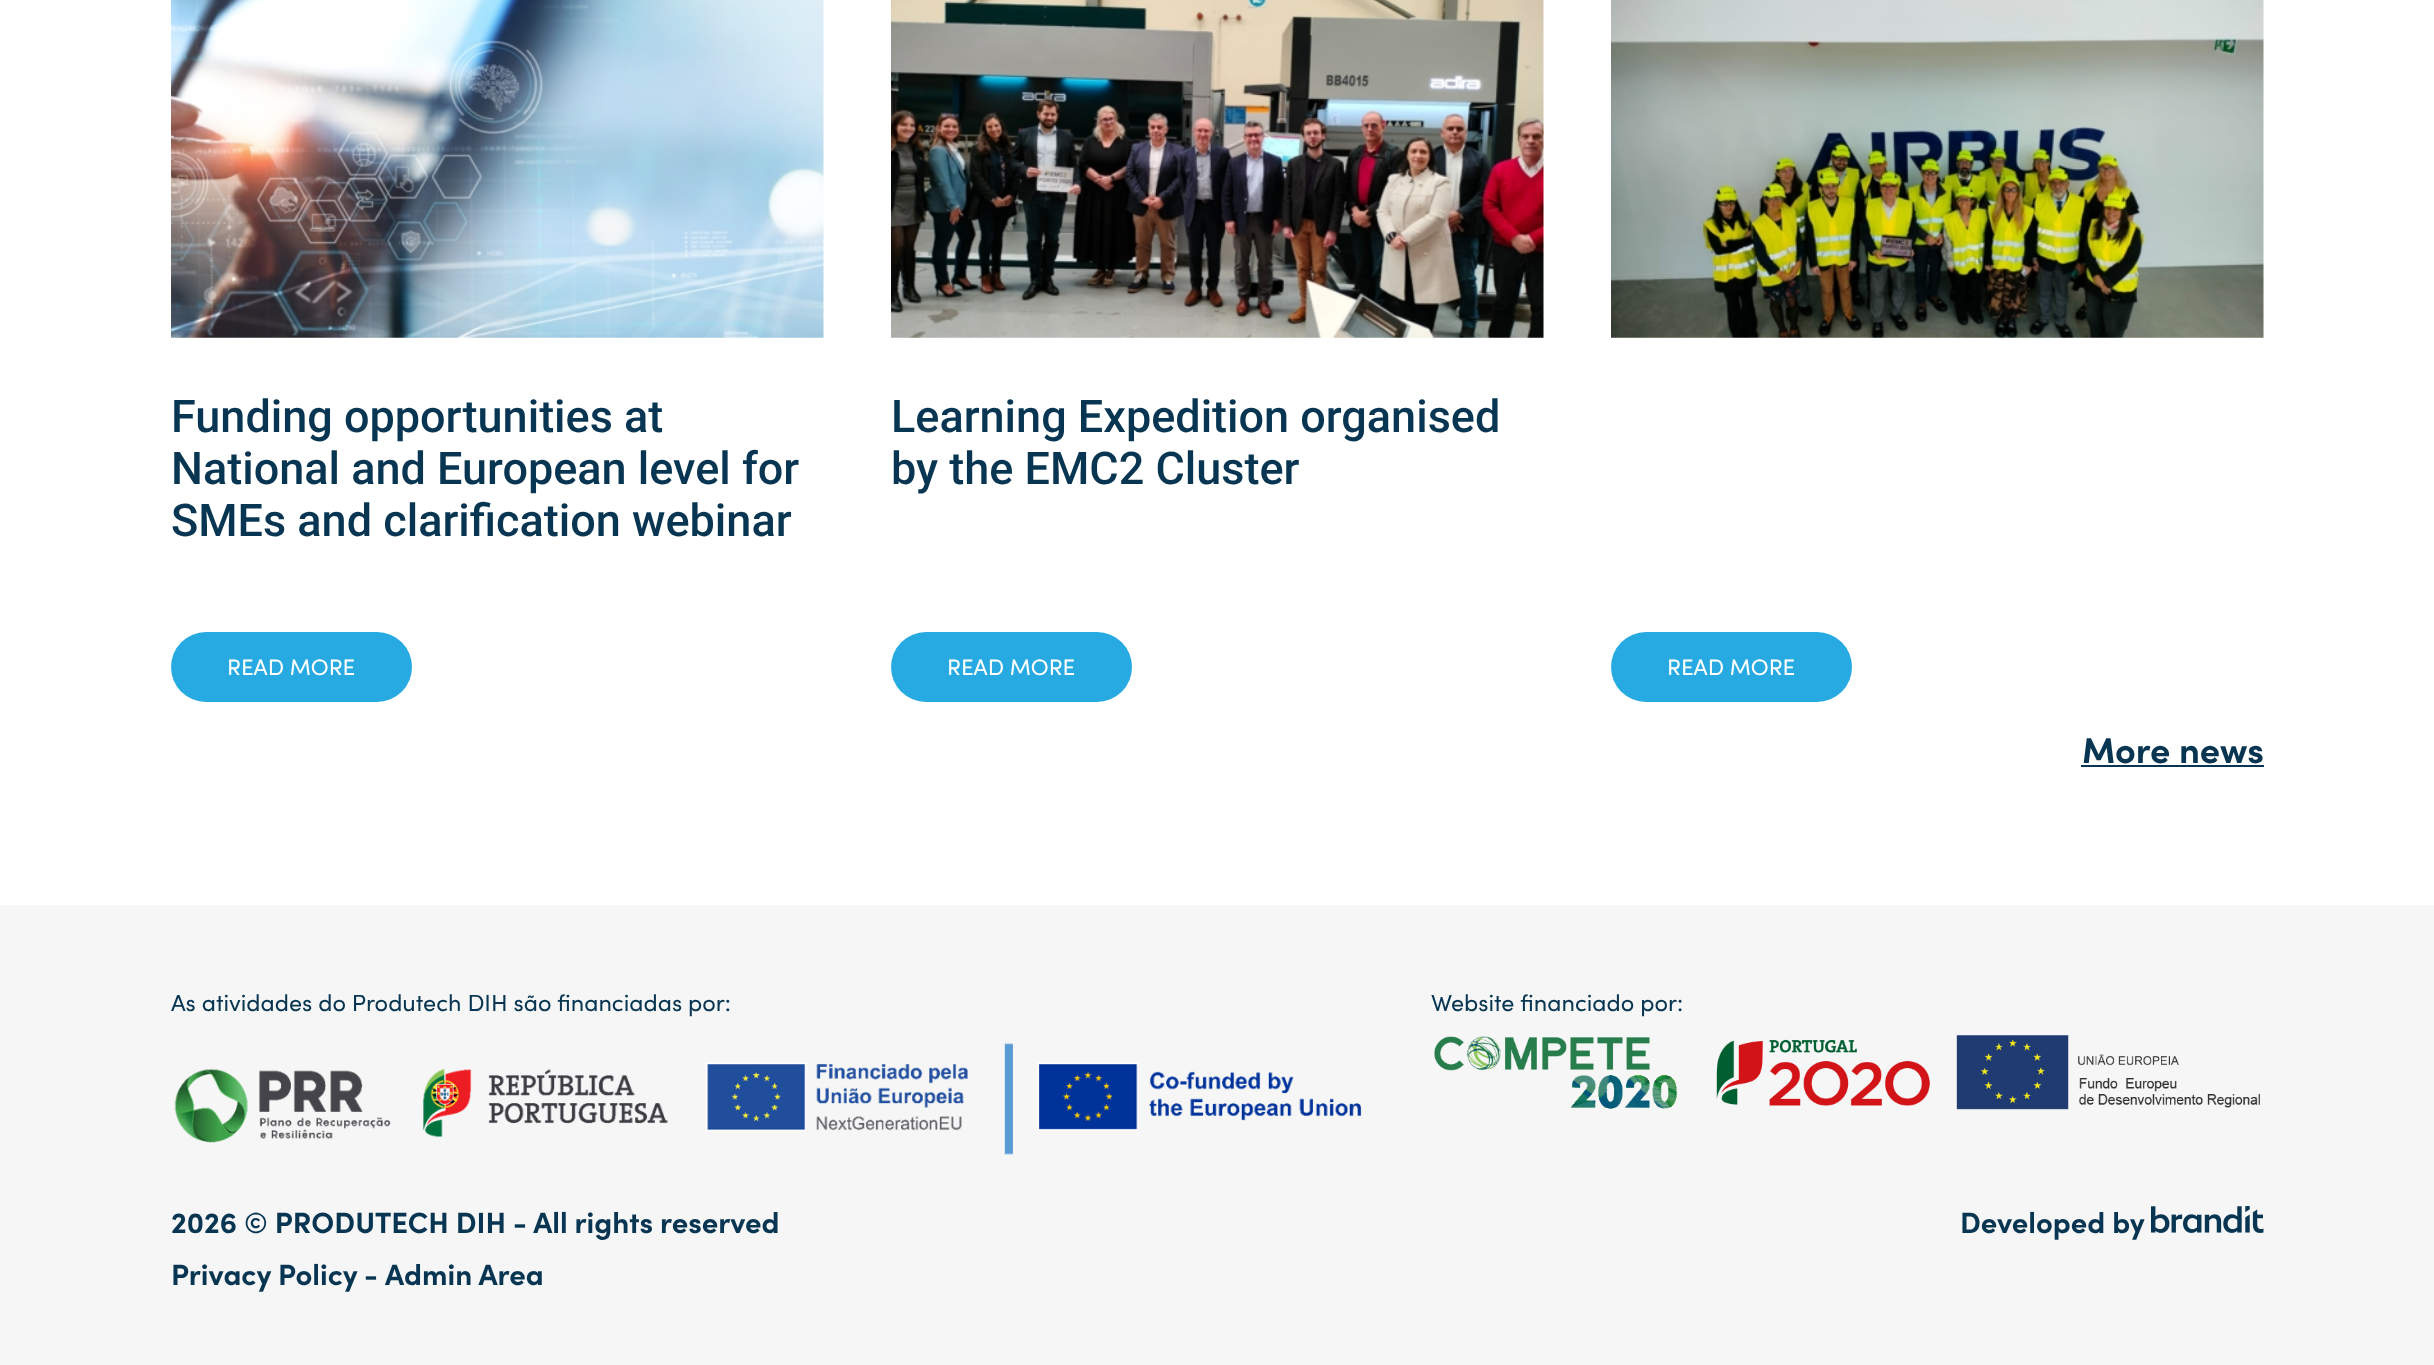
<svg xmlns="http://www.w3.org/2000/svg" width="2434" height="1365" viewBox="0 0 2434 1365">
  <rect width="100%" height="100%" fill="rgb(255,255,255)"/>
  <image x="171" y="0" width="653" height="338" href="pic1.png"/>
  <g font-family="Roboto" font-size="45" font-weight="500" fill="rgb(8,54,82)">
    <text>
      <tspan x="171" y="432">Funding opportunities at</tspan>
      <tspan x="171" y="484">National and European level for</tspan>
      <tspan x="171" y="536">SMEs and clarification webinar</tspan>
    </text>
  </g>
  <rect x="171" y="632" width="241" height="70" rx="35" fill="rgb(39,170,225)"/>
  <text x="227" y="675" font-family="Sofia" font-size="22.5" fill="rgb(255,255,255)">READ MORE</text>
  <image x="891" y="0" width="653" height="338" href="pic2.png"/>
  <g font-family="Roboto" font-size="45" font-weight="500" fill="rgb(8,54,82)">
    <text>
      <tspan x="891" y="432">Learning Expedition organised</tspan>
      <tspan x="891" y="484">by the EMC2 Cluster</tspan>
    </text>
  </g>
  <rect x="891" y="632" width="241" height="70" rx="35" fill="rgb(39,170,225)"/>
  <text x="947" y="675" font-family="Sofia" font-size="22.5" fill="rgb(255,255,255)">READ MORE</text>
  <image x="1611" y="0" width="653" height="338" href="pic3.png"/>
  <rect x="1611" y="632" width="241" height="70" rx="35" fill="rgb(39,170,225)"/>
  <text x="1667" y="675" font-family="Sofia" font-size="22.5" fill="rgb(255,255,255)">READ MORE</text>
  <text x="2082" y="763" font-family="Sofia" font-size="36" font-weight="bold" fill="rgb(8,54,82)">More news</text>
  <rect x="2081" y="765" width="183" height="2" fill="rgb(8,54,82)"/>
  <rect x="0" y="905" width="2434" height="460" fill="rgb(246,246,246)"/>
  <text x="171" y="1011" font-family="Sofia" font-size="23.4" fill="rgb(8,54,82)">As atividades do Produtech DIH são financiadas por:</text>
  <image x="174" y="1043" width="1188" height="112" href="pic4.png"/>
  <text x="1431" y="1011" font-family="Sofia" font-size="23.4" fill="rgb(8,54,82)">Website financiado por:</text>
  <image x="1434" y="1035" width="826" height="75" href="pic5.png"/>
  <g font-family="Sofia" font-size="29.25" font-weight="bold" fill="rgb(8,54,82)">
    <text>
      <tspan x="171" y="1233">2026 © PRODUTECH DIH - All rights reserved</tspan>
      <tspan x="171" y="1285">Privacy Policy</tspan>
    </text>
    <text x="364" y="1285">-</text>
    <text x="385" y="1285">Admin Area</text>
    <text x="1960" y="1233">Developed by</text>
  </g>
  <image x="2151" y="1206" width="113" height="27" href="pic6.png"/>
</svg>
